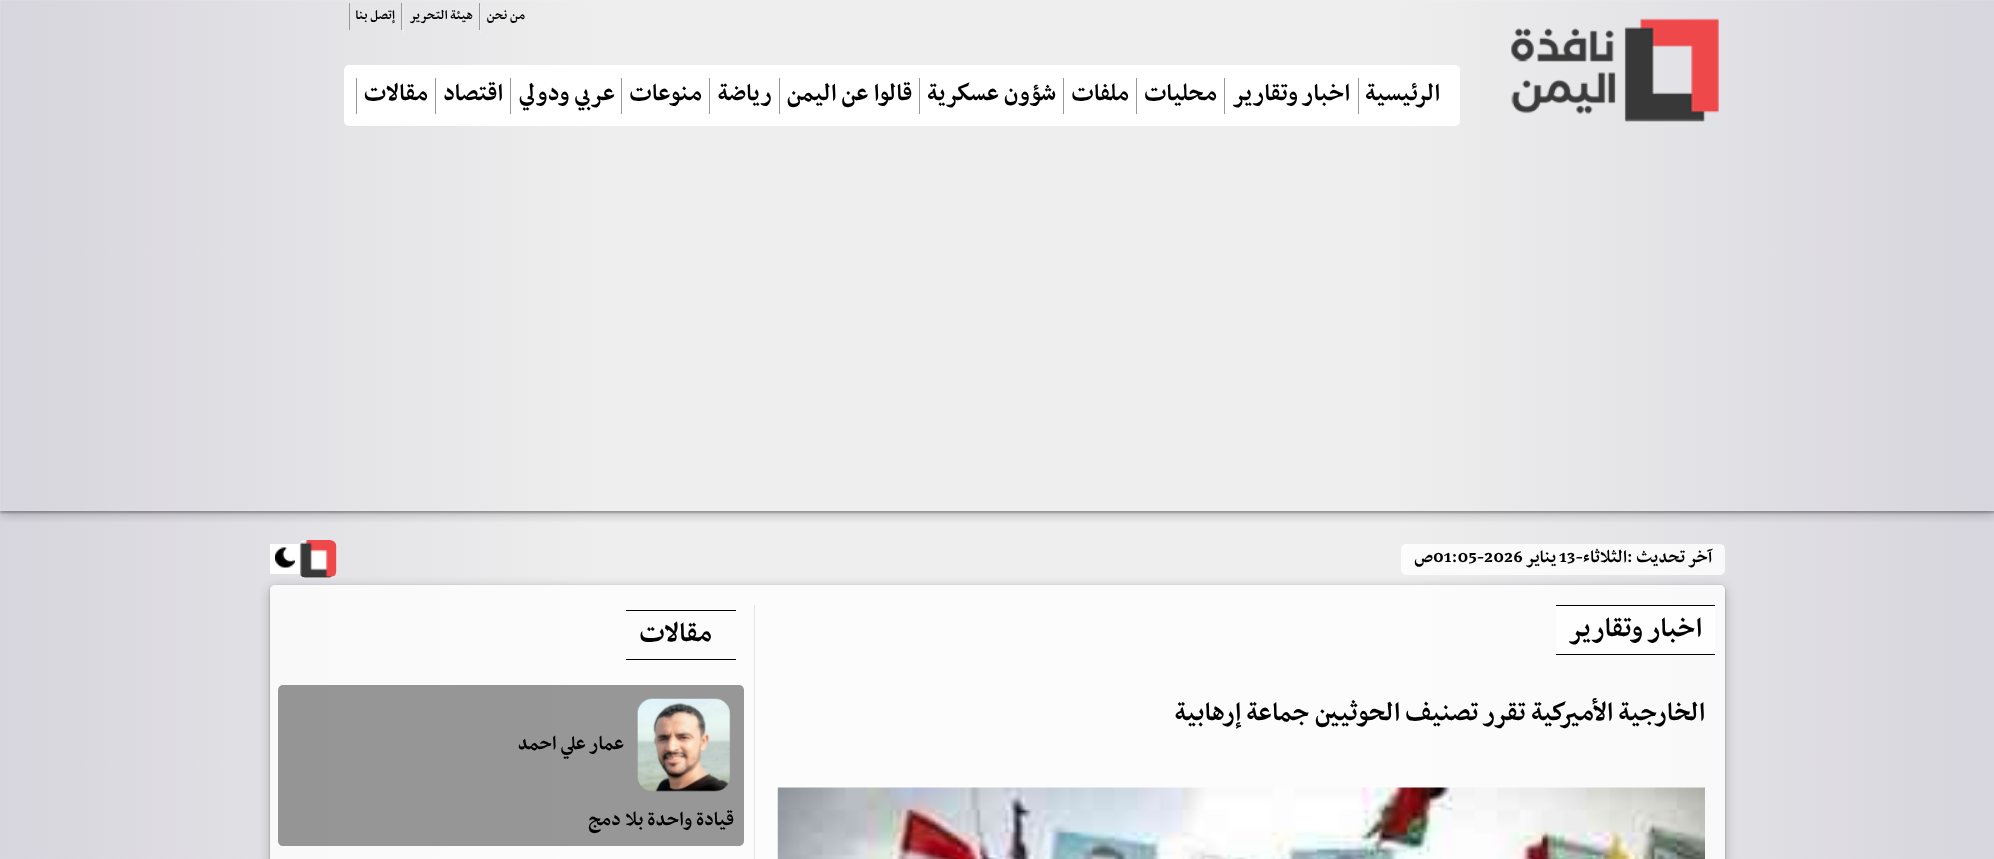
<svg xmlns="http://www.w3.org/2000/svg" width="1994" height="859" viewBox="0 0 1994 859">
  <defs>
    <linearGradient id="g1" gradientUnits="userSpaceOnUse" x1="0" y1="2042" x2="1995" y2="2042"><stop offset="0" stop-color="rgb(215,213,221)"/><stop offset="0.3" stop-color="rgb(238,238,238)"/><stop offset="0.7" stop-color="rgb(238,238,238)"/><stop offset="1" stop-color="rgb(215,213,221)"/></linearGradient>
    <clipPath id="clip1"><rect x="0" y="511" width="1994" height="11"/></clipPath>
    <clipPath id="clip2"><rect x="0" y="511" width="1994" height="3"/></clipPath>
    <clipPath id="clip3"><path d="M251 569H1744V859H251ZM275 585H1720C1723 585 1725 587 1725 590V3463C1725 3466 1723 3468 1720 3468H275C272 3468 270 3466 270 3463V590C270 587 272 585 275 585Z" clip-rule="evenodd"/></clipPath>
    <clipPath id="clip4"><path d="M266 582H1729V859H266ZM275 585H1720C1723 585 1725 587 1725 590V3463C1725 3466 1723 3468 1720 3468H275C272 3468 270 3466 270 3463V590C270 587 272 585 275 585Z" clip-rule="evenodd"/></clipPath>
  </defs>
  <rect width="100%" height="100%" fill="rgb(255,255,255)"/>
  <rect x="0" y="0" width="1994" height="859" fill="url(#g1)"/>
  <g clip-path="url(#clip1)">
    <rect x="0" y="3" width="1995" height="511" fill="rgba(0,0,0,0.25)" filter="blur(6px)"/>
  </g>
  <g clip-path="url(#clip2)">
    <rect x="0" y="1" width="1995" height="512" fill="rgba(0,0,0,0.25)" filter="blur(1px)"/>
  </g>
  <rect x="0.5" y="0.5" width="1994" height="510" fill="none" stroke="rgba(255,255,255,0.1)"/>
  <image x="1511" y="18" width="208" height="104" href="pic1.png"/>
  <rect x="479" y="3" width="1" height="27" fill="rgb(153,153,153)"/>
  <text x="525" y="19" font-family="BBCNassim" font-size="15" font-weight="bold" direction="rtl" fill="rgb(0,0,0)">من نحن</text>
  <rect x="480" y="6" width="1" height="28" fill="rgb(239,239,241)"/>
  <rect x="401" y="3" width="1" height="27" fill="rgb(153,153,153)"/>
  <text x="473" y="19" font-family="BBCNassim" font-size="15" font-weight="bold" direction="rtl" fill="rgb(0,0,0)">هيئة التحرير</text>
  <rect x="403" y="6" width="1" height="28" fill="rgb(238,237,239)"/>
  <rect x="349" y="3" width="1" height="27" fill="rgb(153,153,153)"/>
  <text x="395" y="19" font-family="BBCNassim" font-size="15" font-weight="bold" direction="rtl" fill="rgb(0,0,0)">إتصل بنا</text>
  <rect x="344" y="65" width="1116" height="61" rx="5" fill="rgb(255,255,255)"/>
  <rect x="1358" y="78" width="1" height="36" fill="rgb(153,153,153)"/>
  <text x="1440" y="100" font-family="BBCNassim" font-size="27.5" font-weight="bold" direction="rtl" fill="rgb(0,0,0)">الرئيسية</text>
  <rect x="1224" y="78" width="1" height="36" fill="rgb(153,153,153)"/>
  <text x="1350" y="100" font-family="BBCNassim" font-size="27.5" font-weight="bold" direction="rtl" fill="rgb(0,0,0)">اخبار وتقارير</text>
  <rect x="1136" y="78" width="1" height="36" fill="rgb(153,153,153)"/>
  <text x="1217" y="100" font-family="BBCNassim" font-size="27.5" font-weight="bold" direction="rtl" fill="rgb(0,0,0)">محليات</text>
  <rect x="1063" y="78" width="1" height="36" fill="rgb(153,153,153)"/>
  <text x="1129" y="100" font-family="BBCNassim" font-size="27.5" font-weight="bold" direction="rtl" fill="rgb(0,0,0)">ملفات</text>
  <rect x="919" y="78" width="1" height="36" fill="rgb(153,153,153)"/>
  <text x="1056" y="100" font-family="BBCNassim" font-size="27.5" font-weight="bold" direction="rtl" fill="rgb(0,0,0)">شؤون عسكرية</text>
  <rect x="779" y="78" width="1" height="36" fill="rgb(153,153,153)"/>
  <text x="912" y="100" font-family="BBCNassim" font-size="27.5" font-weight="bold" direction="rtl" fill="rgb(0,0,0)">قالوا عن اليمن</text>
  <rect x="709" y="78" width="1" height="36" fill="rgb(153,153,153)"/>
  <text x="772" y="100" font-family="BBCNassim" font-size="27.5" font-weight="bold" direction="rtl" fill="rgb(0,0,0)">رياضة</text>
  <rect x="621" y="78" width="1" height="36" fill="rgb(153,153,153)"/>
  <text x="702" y="100" font-family="BBCNassim" font-size="27.5" font-weight="bold" direction="rtl" fill="rgb(0,0,0)">منوعات</text>
  <rect x="510" y="78" width="1" height="36" fill="rgb(153,153,153)"/>
  <text x="615" y="100" font-family="BBCNassim" font-size="27.5" font-weight="bold" direction="rtl" fill="rgb(0,0,0)">عربي ودولي</text>
  <rect x="435" y="78" width="1" height="36" fill="rgb(153,153,153)"/>
  <text x="503" y="100" font-family="BBCNassim" font-size="27.5" font-weight="bold" direction="rtl" fill="rgb(0,0,0)">اقتصاد</text>
  <rect x="356" y="78" width="1" height="36" fill="rgb(153,153,153)"/>
  <text x="428" y="100" font-family="BBCNassim" font-size="27.5" font-weight="bold" direction="rtl" fill="rgb(0,0,0)">مقالات</text>
  <rect x="1401" y="544" width="324" height="31" rx="5" fill="rgba(255,255,255,0.8)"/>
  <g font-family="BBCNassim" font-size="20" font-weight="bold" direction="rtl" fill="rgb(0,0,0)">
    <text x="1712" y="562">آخر تحديث :</text>
    <text x="1627" y="562">الثلاثاء-</text>
  </g>
  <text x="1559" y="562" font-family="BBCNassim" font-size="20" font-weight="bold" fill="rgb(0,0,0)">13</text>
  <text x="1556" y="562" font-family="BBCNassim" font-size="20" font-weight="bold" direction="rtl" fill="rgb(0,0,0)">يناير</text>
  <text x="1433" y="562" font-family="BBCNassim" font-size="20" font-weight="bold" fill="rgb(0,0,0)">01:05-2026</text>
  <text x="1433" y="562" font-family="BBCNassim" font-size="20" font-weight="bold" direction="rtl" fill="rgb(0,0,0)">ص</text>
  <rect x="270" y="544" width="30" height="30" fill="rgb(255,255,255)"/>
  <rect x="299" y="540" width="37" height="38" rx="6" fill="rgb(255,255,255)"/>
  <image x="299" y="540" width="38" height="38" href="pic2.png"/>
  <image x="275" y="547" width="20" height="21" href="pic3.png"/>
  <g clip-path="url(#clip3)">
    <rect x="270" y="588" width="1455" height="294" rx="5" fill="rgba(0,0,0,0.25)" filter="blur(6px)"/>
  </g>
  <g clip-path="url(#clip4)">
    <rect x="270" y="586" width="1455" height="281" rx="5" fill="rgba(0,0,0,0.25)" filter="blur(1px)"/>
  </g>
  <rect x="270" y="585" width="1455" height="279" rx="5" fill="rgba(255,255,255,0.8)"/>
  <rect x="754" y="605" width="1" height="254" fill="rgb(230,231,232)"/>
  <rect x="1556" y="606" width="159" height="48" fill="rgb(254,254,254)"/>
  <rect x="1556" y="605" width="159" height="1" fill="rgb(0,0,0)"/>
  <rect x="1556" y="654" width="159" height="1" fill="rgb(0,0,0)"/>
  <text x="1702" y="636" font-family="BBCNassim" font-size="31.25" font-weight="bold" direction="rtl" fill="rgb(0,0,0)">اخبار وتقارير</text>
  <text x="1705" y="720" font-family="BBCNassim" font-size="30" font-weight="bold" direction="rtl" fill="rgb(0,0,0)">الخارجية الأميركية تقرر تصنيف الحوثيين جماعة إرهابية</text>
  <image x="777" y="787" width="928" height="72" href="pic4.png"/>
  <rect x="626" y="610" width="110" height="1" fill="rgb(0,0,0)"/>
  <rect x="626" y="659" width="110" height="1" fill="rgb(0,0,0)"/>
  <text x="712" y="641" font-family="BBCNassim" font-size="31.25" font-weight="bold" direction="rtl" fill="rgb(0,0,0)">مقالات</text>
  <rect x="278" y="685" width="466" height="161" rx="5" fill="rgba(50,50,50,0.5)"/>
  <rect x="280" y="845" width="461" height="1" fill="rgba(150,150,150,0.5)"/>
  <image x="637" y="698" width="94" height="94" href="pic5.png"/>
  <g font-family="BBCNassim" font-size="22.5" font-weight="bold" direction="rtl" fill="rgb(0,0,0)">
    <text x="624" y="749">عمار علي احمد</text>
    <text x="734" y="825">قيادة واحدة بلا دمج</text>
  </g>
</svg>
